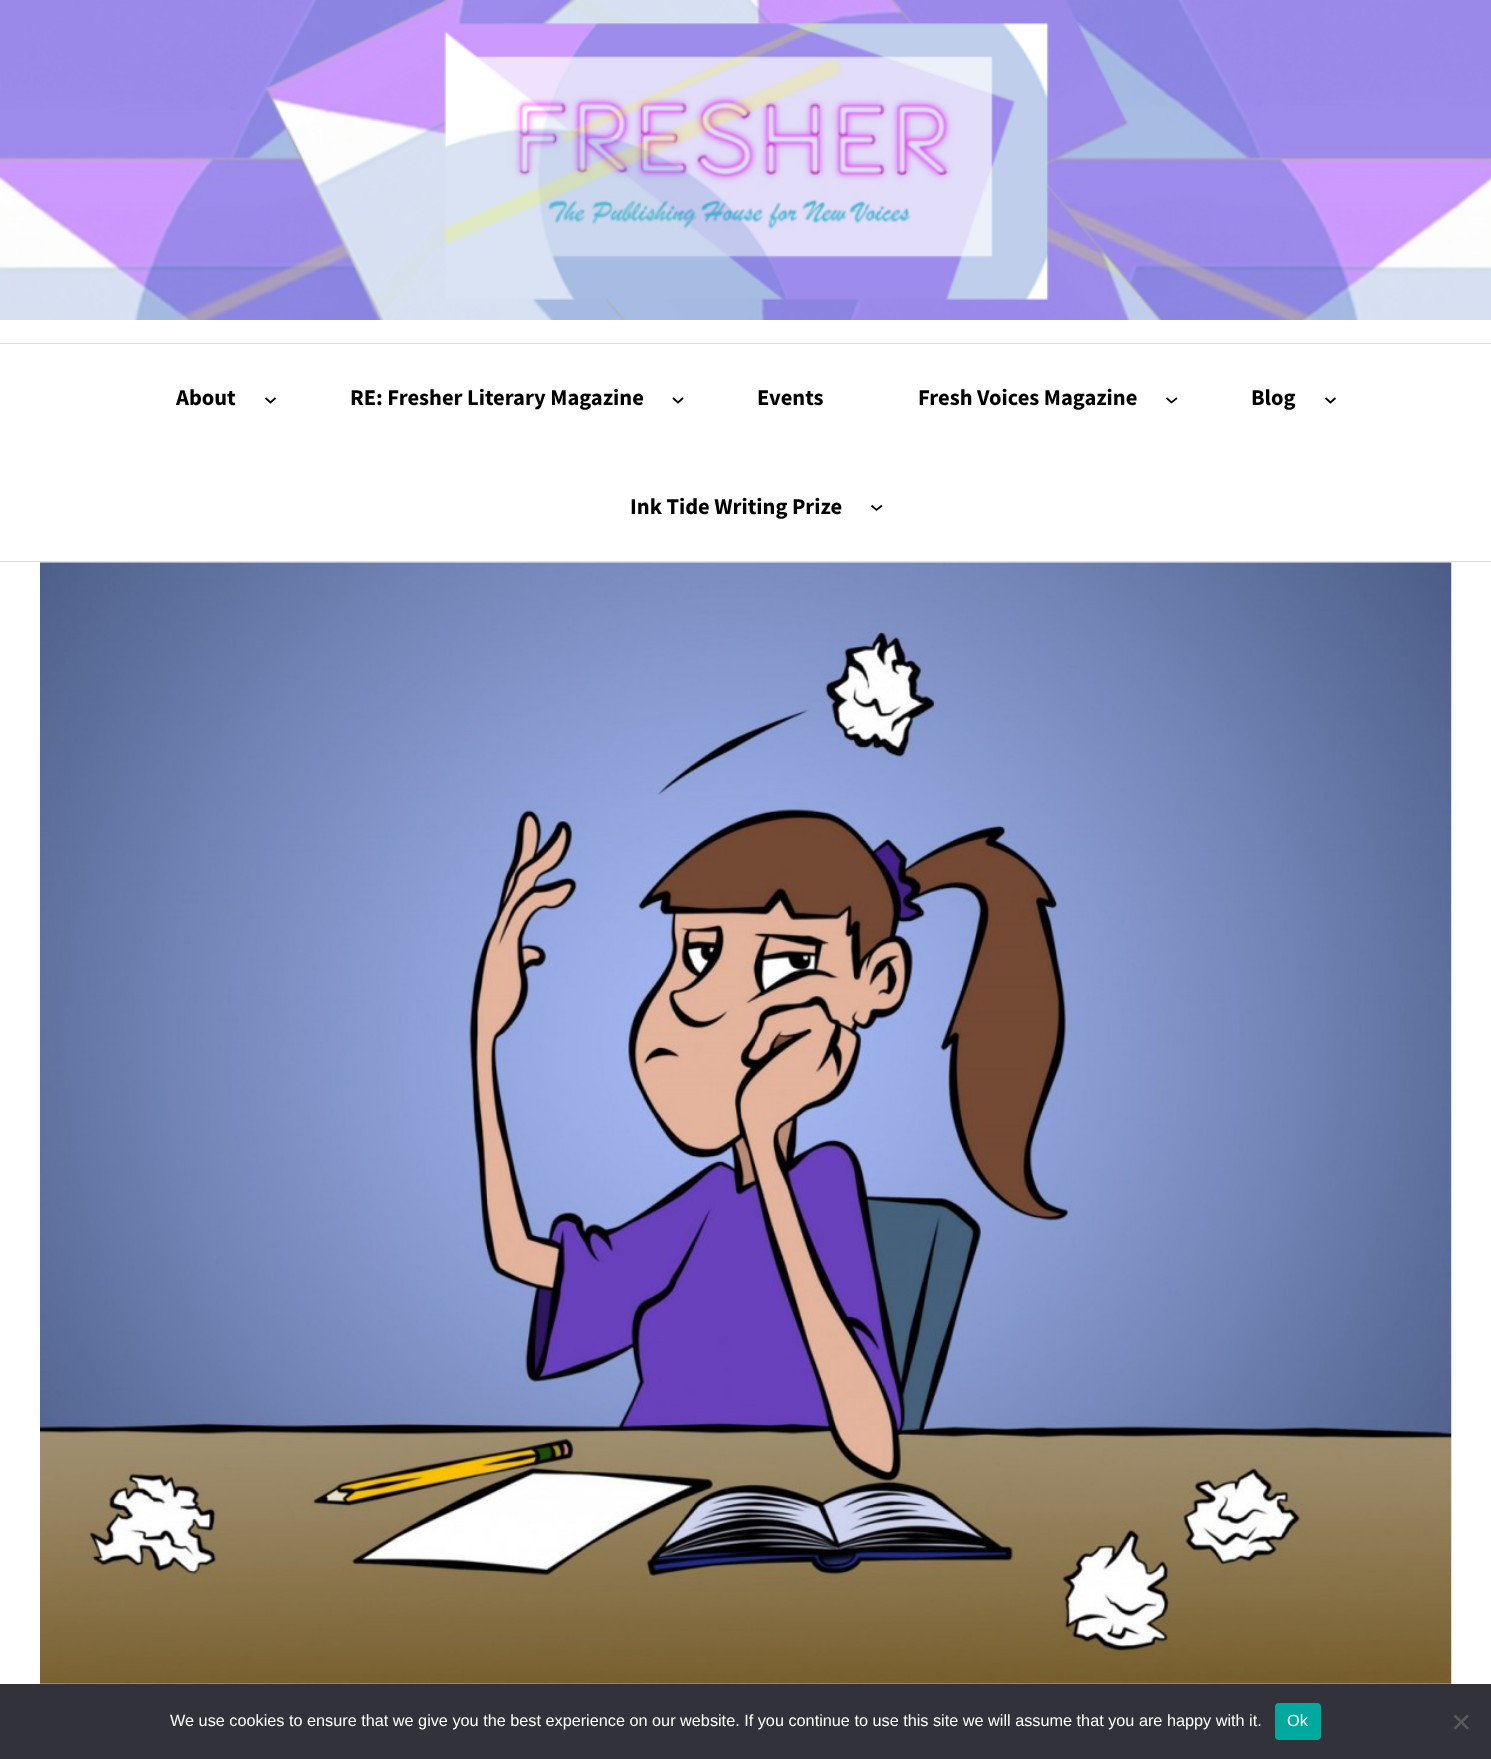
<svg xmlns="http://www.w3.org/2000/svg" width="1491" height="1759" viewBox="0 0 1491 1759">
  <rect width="100%" height="100%" fill="rgb(255,255,255)"/>
  <image x="0" y="0" width="1491" height="320" href="pic1.png"/>
  <rect x="0" y="343" width="1491" height="1" fill="rgb(222,222,222)"/>
  <rect x="0" y="561" width="1491" height="1" fill="rgb(222,222,222)"/>
  <text x="176" y="405" font-family="Source Sans Pro" font-size="22.5" font-weight="bold" fill="rgb(0,0,0)">About</text>
  <path d="M265.5 398L270.5 402.5L275.5 398" fill="none" stroke="rgb(0,0,0)" stroke-width="1.7"/>
  <text x="350" y="405" font-family="Source Sans Pro" font-size="22.5" font-weight="bold" fill="rgb(0,0,0)">RE: Fresher Literary Magazine</text>
  <path d="M673 398L678 402.5L683 398" fill="none" stroke="rgb(0,0,0)" stroke-width="1.7"/>
  <g font-family="Source Sans Pro" font-size="22.5" font-weight="bold" fill="rgb(0,0,0)">
    <text x="757" y="405">Events</text>
    <text x="918" y="405">Fresh Voices Magazine</text>
  </g>
  <path d="M1166.5 398L1171.5 402.5L1177 398" fill="none" stroke="rgb(0,0,0)" stroke-width="1.7"/>
  <text x="1251" y="405" font-family="Source Sans Pro" font-size="22.5" font-weight="bold" fill="rgb(0,0,0)">Blog</text>
  <path d="M1325.5 398L1330.5 402.5L1335.5 398" fill="none" stroke="rgb(0,0,0)" stroke-width="1.7"/>
  <text x="630" y="514" font-family="Source Sans Pro" font-size="22.5" font-weight="bold" fill="rgb(0,0,0)">Ink Tide Writing Prize</text>
  <path d="M871.5 505.5L876.5 510L882 505.5" fill="none" stroke="rgb(0,0,0)" stroke-width="1.7"/>
  <image x="40" y="562" width="1412" height="1122" href="pic2.png"/>
  <rect x="0" y="1684" width="1491" height="75" fill="rgb(50,50,58)"/>
  <text x="170" y="1726" font-family="Liberation Sans" font-size="16.25" fill="rgb(255,255,255)">We use cookies to ensure that we give you the best experience on our website. If you continue to use this site we will assume that you are happy with it.</text>
  <rect x="1275" y="1703" width="46" height="37" rx="4" fill="rgb(0,169,157)"/>
  <text x="1287" y="1726" font-family="Liberation Sans" font-size="16.25" fill="rgb(255,255,255)">Ok</text>
  <path d="M1467 1714.5L1469 1716.5L1455.5 1729.5L1453.5 1728Z" fill="rgb(89,89,93)"/>
  <path d="M1453.5 1716.5L1455.5 1714.5L1469 1728L1467 1729.5Z" fill="rgb(89,89,93)"/>
</svg>
